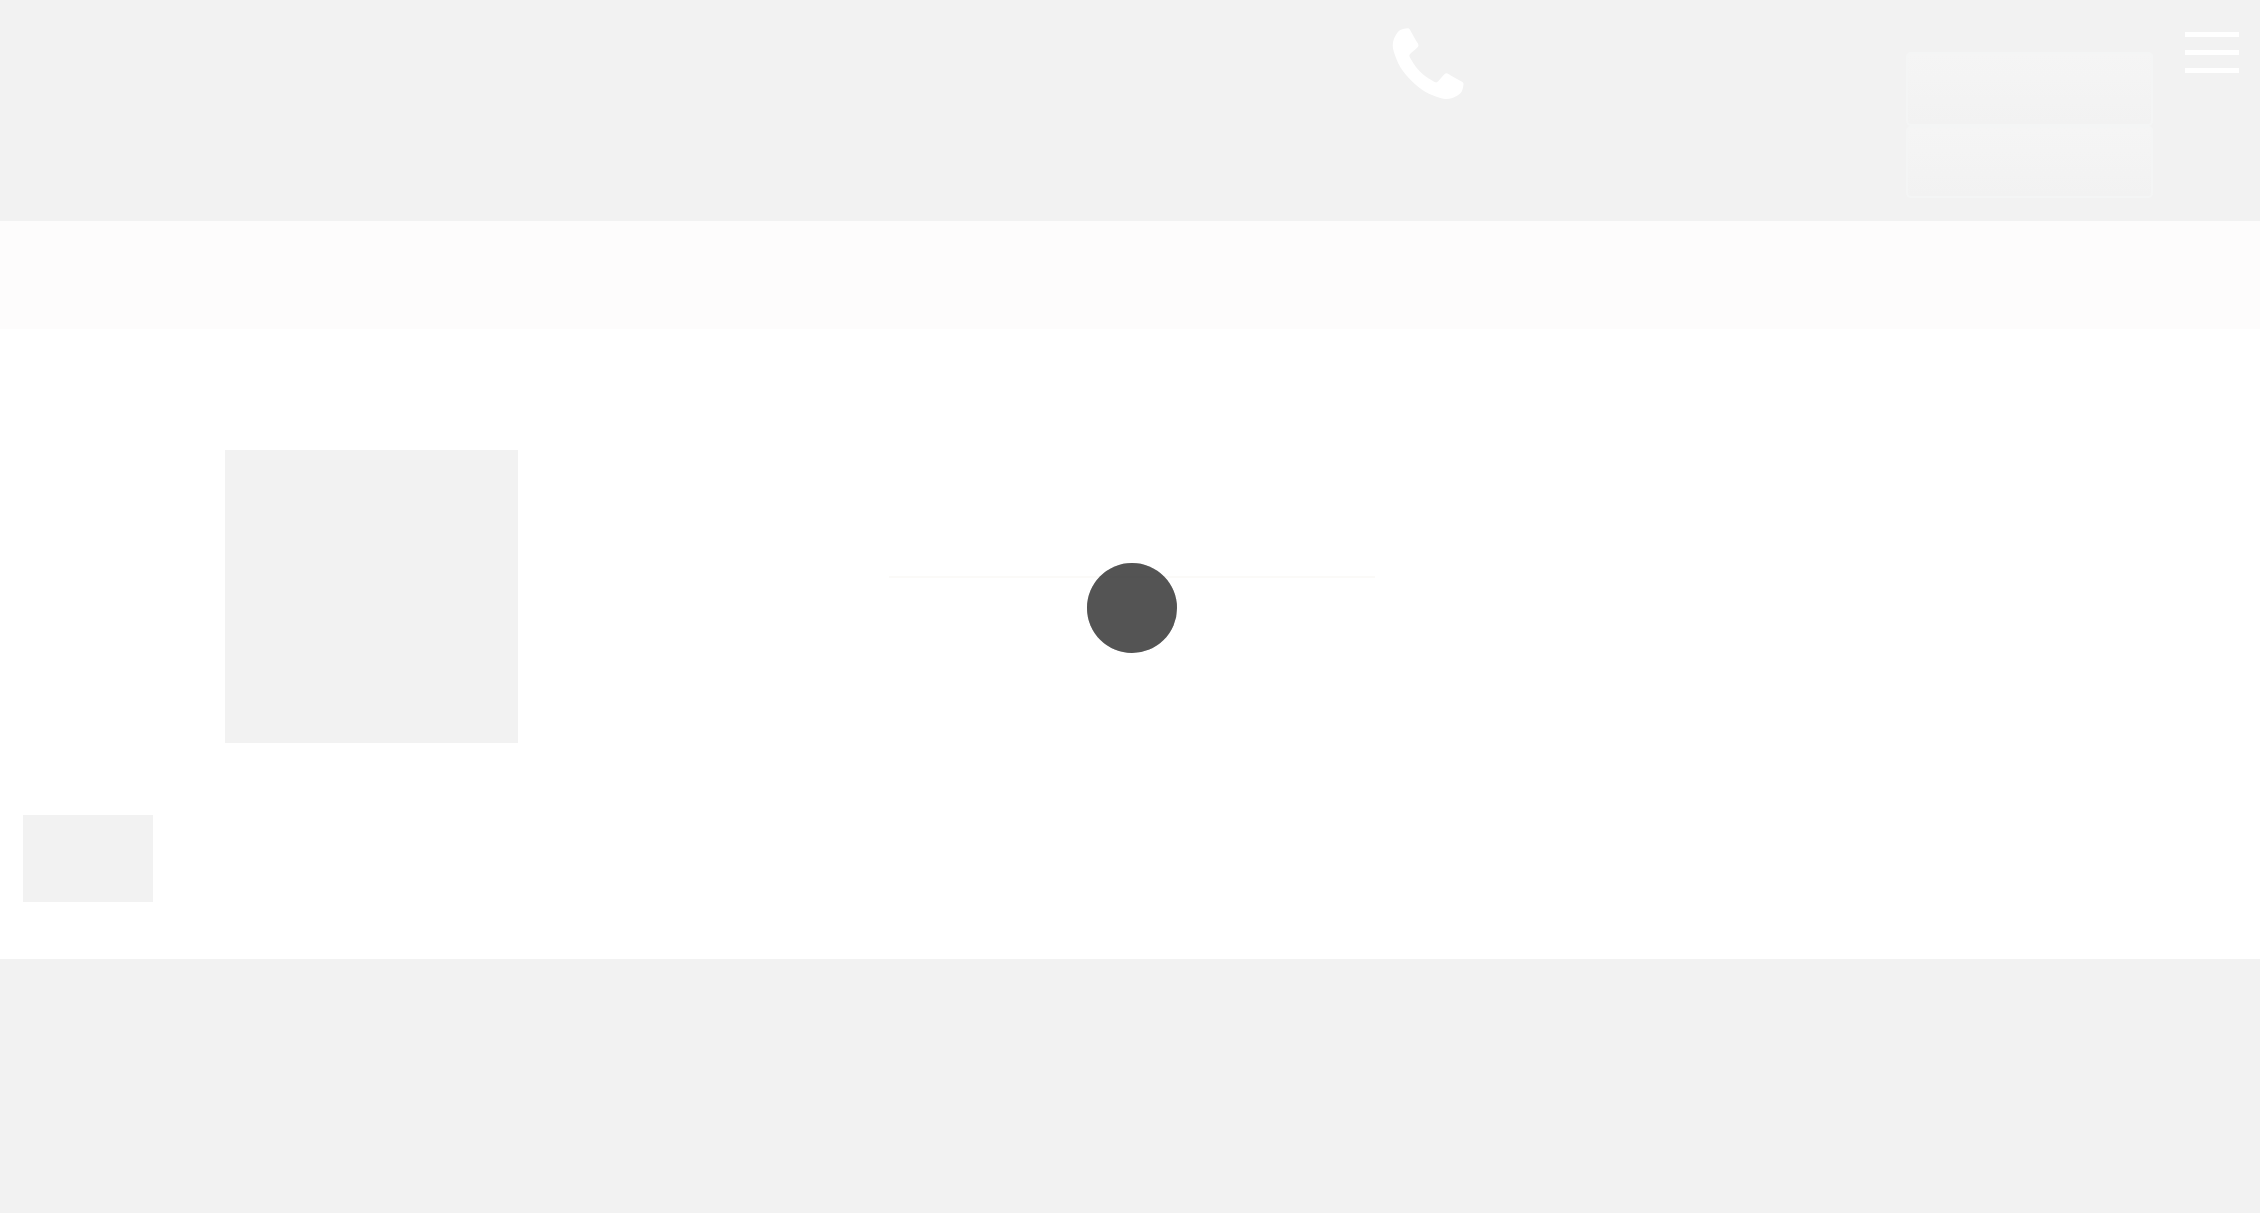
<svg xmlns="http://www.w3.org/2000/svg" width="2260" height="1213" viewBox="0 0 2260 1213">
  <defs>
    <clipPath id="clip1"><rect x="1906" y="52" width="247" height="74" rx="5"/></clipPath>
    <linearGradient id="g1" gradientUnits="userSpaceOnUse" x1="2030" y1="54" x2="2030" y2="124"><stop offset="0" stop-color="rgb(245,245,245)"/><stop offset="1" stop-color="rgb(242,242,242)"/></linearGradient>
    <clipPath id="clip2"><rect x="1906" y="126" width="247" height="72" rx="5"/></clipPath>
    <linearGradient id="g2" gradientUnits="userSpaceOnUse" x1="2030" y1="128" x2="2030" y2="196"><stop offset="0" stop-color="rgb(245,245,245)"/><stop offset="1" stop-color="rgb(242,242,242)"/></linearGradient>
  </defs>
  <rect width="100%" height="100%" fill="rgb(255,255,255)"/>
  <rect x="0" y="0" width="2260" height="221" fill="rgb(242,242,242)"/>
  <image x="1392" y="28" width="72" height="71" href="pic1.png"/>
  <g clip-path="url(#clip1)">
    <rect x="1906" y="54" width="247" height="70" fill="url(#g1)"/>
  </g>
  <rect x="1907" y="53" width="245" height="72" rx="4" fill="none" stroke="rgb(244,245,245)" stroke-width="2"/>
  <g clip-path="url(#clip2)">
    <rect x="1906" y="128" width="247" height="68" fill="url(#g2)"/>
  </g>
  <rect x="1907" y="127" width="245" height="70" rx="4" fill="none" stroke="rgb(244,245,245)" stroke-width="2"/>
  <rect x="2185" y="50" width="54" height="5" fill="rgb(255,255,255)"/>
  <rect x="2185" y="32" width="54" height="5" fill="rgb(255,255,255)"/>
  <rect x="2185" y="68" width="54" height="5" fill="rgb(255,255,255)"/>
  <rect x="0" y="221" width="2260" height="108" fill="rgb(253,252,252)"/>
  <rect x="225" y="450" width="293" height="293" fill="rgb(242,242,242)"/>
  <rect x="889" y="576" width="486" height="2" fill="rgb(251,250,248)"/>
  <rect x="23" y="815" width="130" height="87" fill="rgb(242,242,242)"/>
  <circle cx="1132" cy="608" r="45" fill="rgba(51,51,51,0.6)"/>
  <circle cx="1132" cy="608" r="45" fill="rgba(51,51,51,0.6)"/>
  <rect x="0" y="959" width="2260" height="254" fill="rgb(242,242,242)"/>
</svg>
